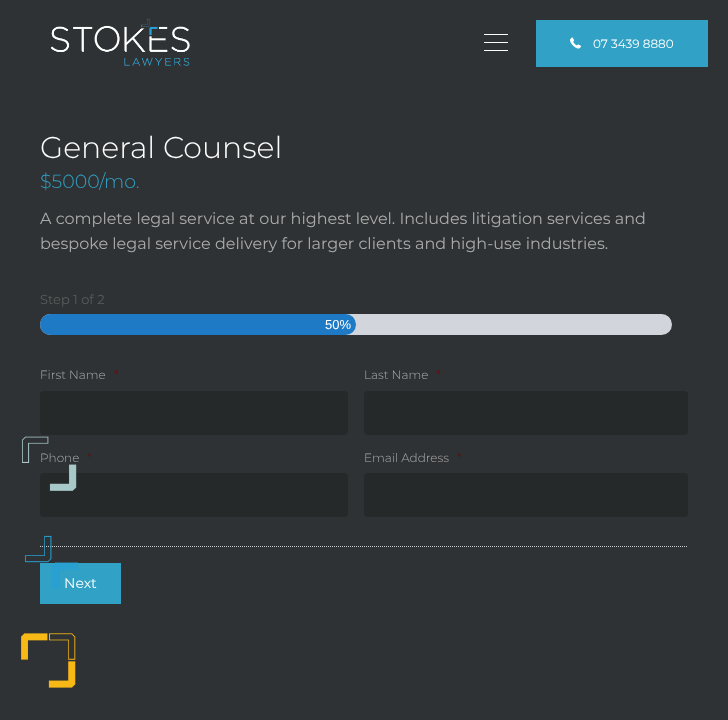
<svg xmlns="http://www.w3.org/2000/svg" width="728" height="720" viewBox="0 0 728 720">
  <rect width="100%" height="100%" fill="rgb(47,50,52)"/>
  <image x="51" y="18" width="139" height="48" href="pic1.png"/>
  <rect x="484" y="42" width="24" height="1" rx="0.5" fill="rgb(255,255,255)"/>
  <rect x="484" y="34" width="24" height="1" rx="0.5" fill="rgb(255,255,255)"/>
  <rect x="484" y="50" width="24" height="1" rx="0.5" fill="rgb(255,255,255)"/>
  <rect x="536" y="20" width="172" height="47" fill="rgb(49,161,197)"/>
  <image x="570" y="37" width="12" height="12" href="pic2.png"/>
  <text x="593" y="48" font-family="Montserrat" font-size="12" fill="rgb(255,255,255)">07 3439 8880</text>
  <text x="40" y="158" font-family="Montserrat" font-size="30" font-weight="300" fill="rgb(255,255,255)">General Counsel</text>
  <text x="40" y="188" font-family="Montserrat" font-size="19" font-weight="300" fill="rgb(49,161,197)">$5000/mo.</text>
  <g font-family="Montserrat" font-size="16" fill="rgb(170,170,170)">
    <text>
      <tspan x="40" y="224">A complete legal service at our highest level. Includes litigation services and</tspan>
      <tspan x="40" y="249">bespoke legal service delivery for larger clients and high-use industries.</tspan>
    </text>
  </g>
  <text x="40" y="304" font-family="Montserrat" font-size="13" fill="rgb(90,91,92)">Step 1 of 2</text>
  <rect x="40" y="314" width="632" height="21" rx="10.5" fill="rgb(210,214,220)"/>
  <rect x="40" y="314" width="316" height="21" rx="10.5" fill="rgb(30,122,196)"/>
  <text x="325" y="329" font-family="Liberation Sans" font-size="13" fill="rgb(255,255,255)">50%</text>
  <text x="40" y="379" font-family="Montserrat" font-size="12" font-weight="300" fill="rgb(170,170,170)">First Name</text>
  <text x="114" y="379" font-family="Montserrat" font-size="12" font-weight="300" fill="rgb(121,0,0)">*</text>
  <rect x="40" y="391" width="308" height="44" rx="4" fill="rgb(38,41,42)"/>
  <text x="364" y="379" font-family="Montserrat" font-size="12" font-weight="300" fill="rgb(170,170,170)">Last Name</text>
  <text x="436" y="379" font-family="Montserrat" font-size="12" font-weight="300" fill="rgb(121,0,0)">*</text>
  <rect x="364" y="391" width="324" height="44" rx="4" fill="rgb(38,41,42)"/>
  <text x="40" y="462" font-family="Montserrat" font-size="12" font-weight="300" fill="rgb(170,170,170)">Phone</text>
  <text x="87" y="462" font-family="Montserrat" font-size="12" font-weight="300" fill="rgb(121,0,0)">*</text>
  <rect x="40" y="473" width="308" height="44" rx="4" fill="rgb(38,41,42)"/>
  <text x="364" y="462" font-family="Montserrat" font-size="12" font-weight="300" fill="rgb(170,170,170)">Email Address</text>
  <text x="457" y="462" font-family="Montserrat" font-size="12" font-weight="300" fill="rgb(121,0,0)">*</text>
  <rect x="364" y="473" width="324" height="44" rx="4" fill="rgb(38,41,42)"/>
  <path d="M40 546.5H688" fill="none" stroke="rgb(204,204,204)" stroke-dasharray="1 1"/>
  <rect x="40" y="563" width="81" height="41" fill="rgb(49,161,197)"/>
  <text x="64" y="588" font-family="Montserrat" font-size="14" fill="rgb(255,255,255)">Next</text>
  <image x="21" y="436" width="57" height="252" href="pic3.png"/>
</svg>
